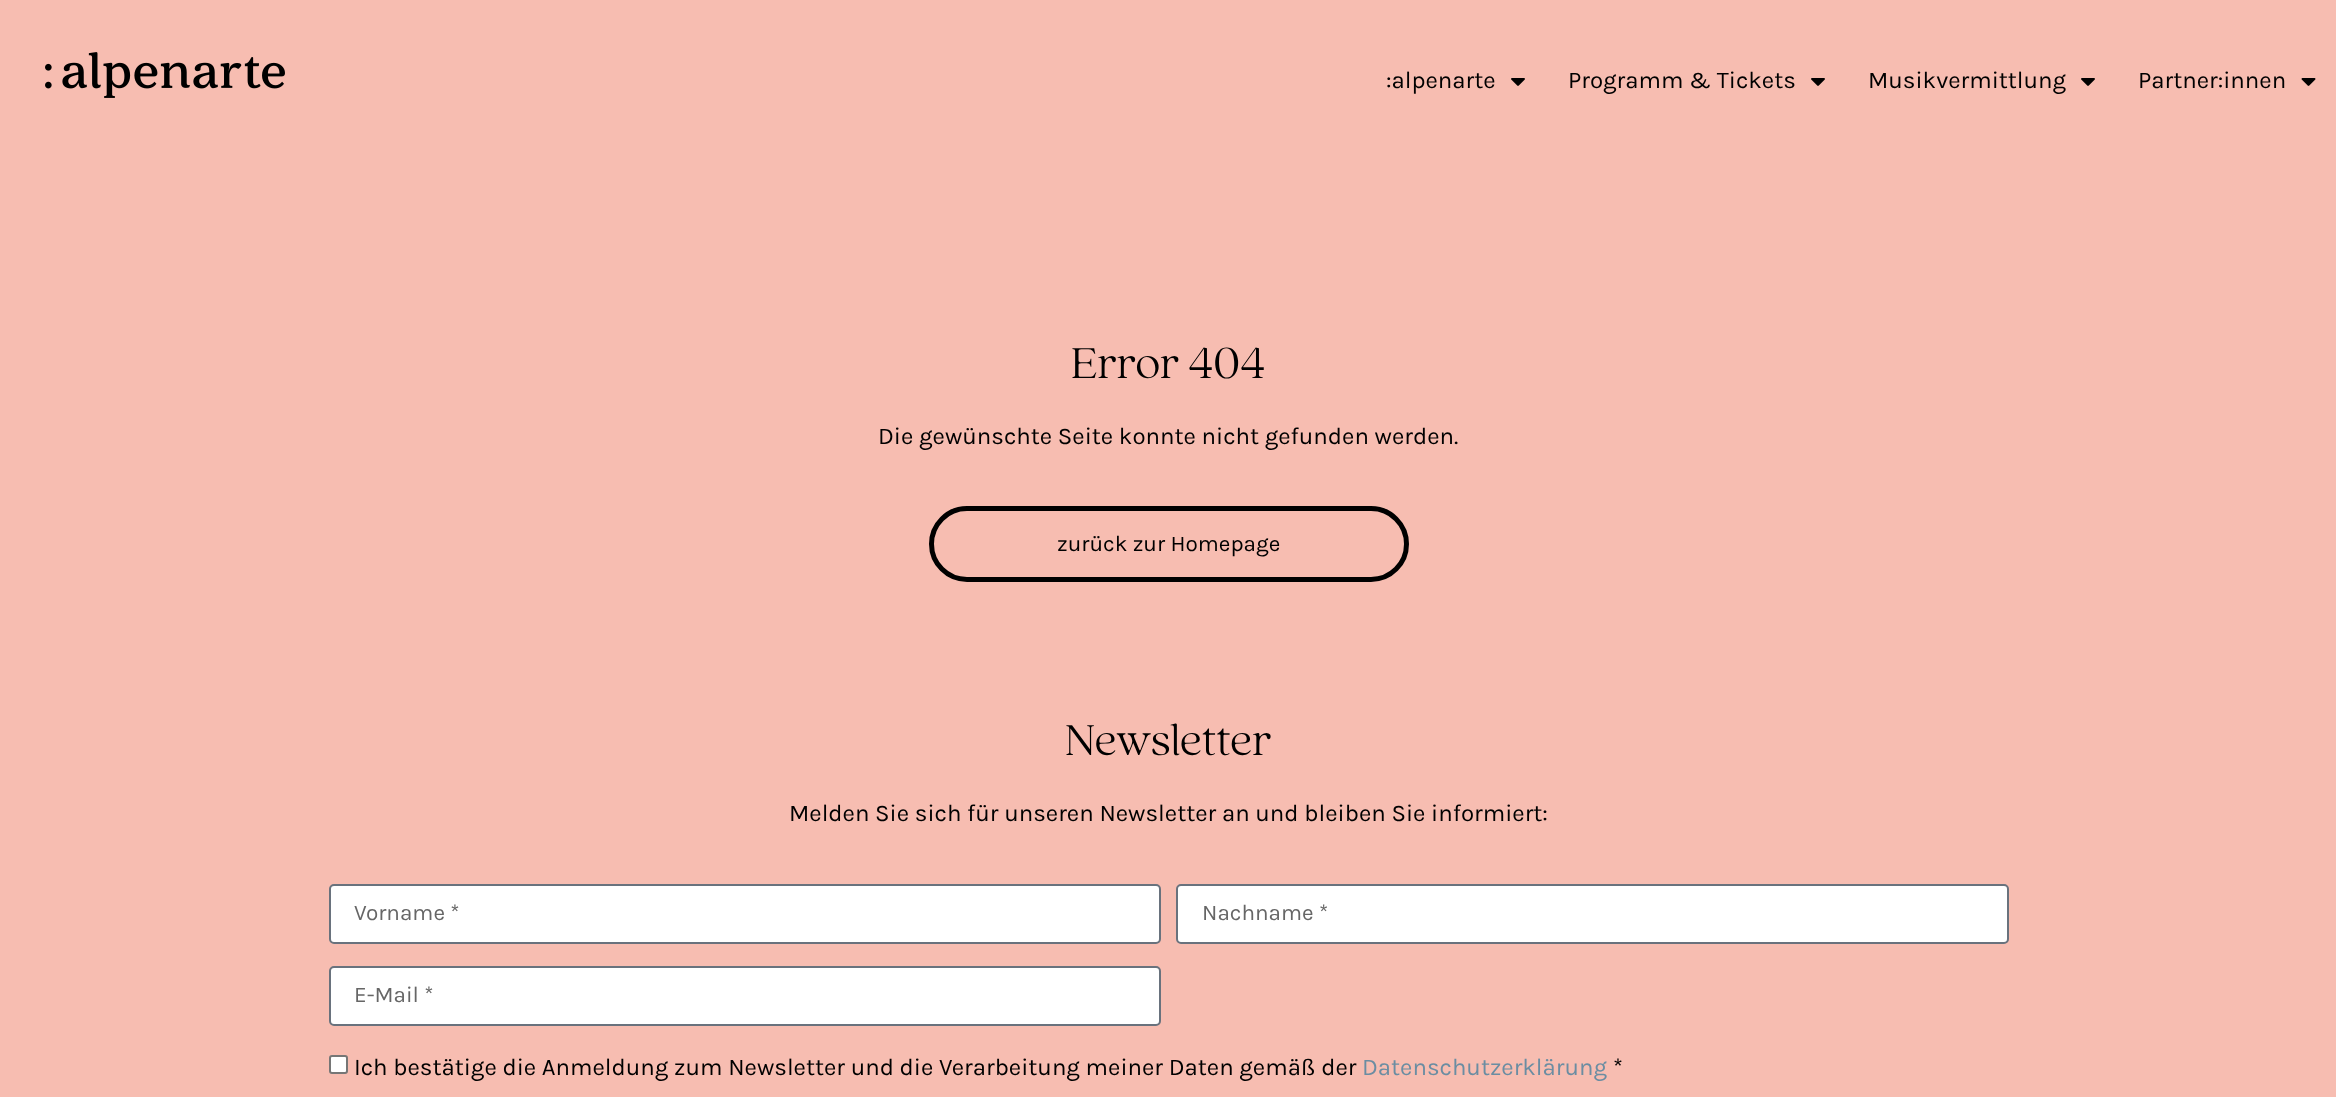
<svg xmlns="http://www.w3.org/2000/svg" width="2336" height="1097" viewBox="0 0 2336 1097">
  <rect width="100%" height="100%" fill="rgb(247,189,177)"/>
  <image x="45" y="52" width="240" height="46" href="pic1.png"/>
  <text x="1386" y="88" font-family="Karla" font-size="24" fill="rgb(0,0,0)">:alpenarte</text>
  <image x="1511" y="78" width="14" height="8" href="pic2.png"/>
  <text x="1568" y="88" font-family="Karla" font-size="24" fill="rgb(0,0,0)">Programm &amp; Tickets</text>
  <image x="1811" y="78" width="14" height="8" href="pic2.png"/>
  <text x="1868" y="88" font-family="Karla" font-size="24" fill="rgb(0,0,0)">Musikvermittlung</text>
  <image x="2081" y="78" width="14" height="8" href="pic2.png"/>
  <text x="2138" y="88" font-family="Karla" font-size="24" fill="rgb(0,0,0)">Partner:innen</text>
  <image x="2301" y="78" width="15" height="8" href="pic3.png"/>
  <text x="1071" y="378" font-family="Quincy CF" font-size="48" font-weight="100" fill="rgb(0,0,0)">Error 404</text>
  <text x="878" y="444" font-family="Karla" font-size="24" fill="rgb(0,0,0)">Die gewünschte Seite konnte nicht gefunden werden.</text>
  <rect x="931.5" y="508.5" width="475" height="71" rx="35.5" fill="none" stroke="rgb(0,0,0)" stroke-width="5"/>
  <text x="1057" y="551" font-family="Karla" font-size="22.5" fill="rgb(0,0,0)">zurück zur Homepage</text>
  <text x="1065" y="755" font-family="Quincy CF" font-size="48" font-weight="100" fill="rgb(0,0,0)">Newsletter</text>
  <text x="789" y="821" font-family="Karla" font-size="24" fill="rgb(0,0,0)">Melden Sie sich für unseren Newsletter an und bleiben Sie informiert:</text>
  <rect x="330" y="885" width="830" height="58" rx="4" fill="rgb(255,255,255)" stroke="rgb(105,114,125)" stroke-width="2"/>
  <text x="354" y="920" font-family="Karla" font-size="22.5" fill="rgb(102,102,102)">Vorname *</text>
  <rect x="1177" y="885" width="831" height="58" rx="4" fill="rgb(255,255,255)" stroke="rgb(105,114,125)" stroke-width="2"/>
  <text x="1202" y="920" font-family="Karla" font-size="22.5" fill="rgb(102,102,102)">Nachname *</text>
  <rect x="330" y="967" width="830" height="58" rx="4" fill="rgb(255,255,255)" stroke="rgb(105,114,125)" stroke-width="2"/>
  <text x="354" y="1002" font-family="Karla" font-size="22.5" fill="rgb(102,102,102)">E-Mail *</text>
  <rect x="330" y="1056" width="17" height="17" rx="2" fill="rgb(255,255,255)" stroke="rgb(118,118,118)" stroke-width="2"/>
  <text x="354" y="1075" font-family="Karla" font-size="24" fill="rgb(0,0,0)">Ich bestätige die Anmeldung zum Newsletter und die Verarbeitung meiner Daten gemäß der</text>
  <text x="1362" y="1075" font-family="Karla" font-size="24" fill="rgb(107,141,162)">Datenschutzerklärung</text>
  <text x="1613" y="1075" font-family="Karla" font-size="24" fill="rgb(0,0,0)">*</text>
</svg>
